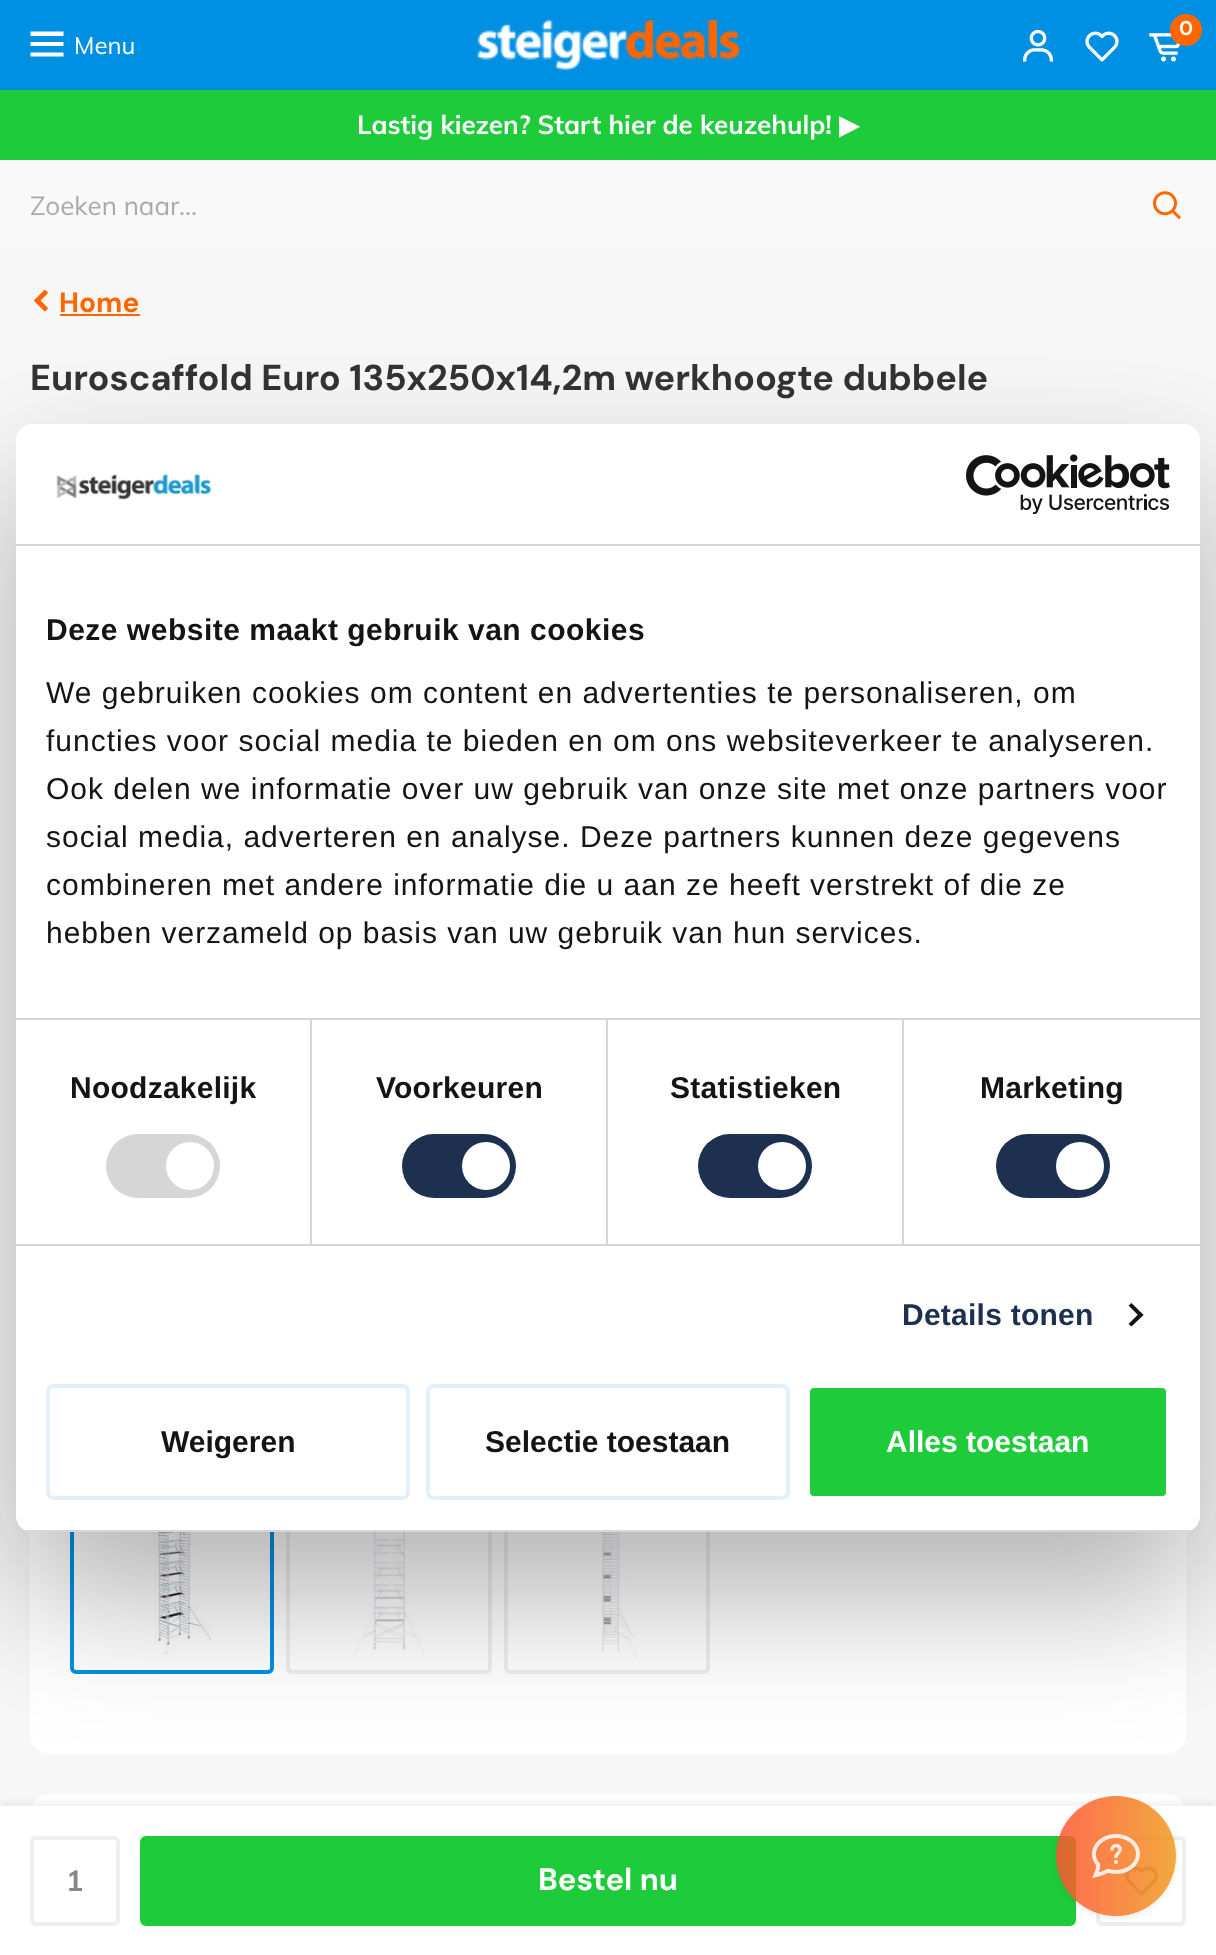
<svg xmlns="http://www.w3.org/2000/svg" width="1216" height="1955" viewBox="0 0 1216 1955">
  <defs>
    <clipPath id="clip1"><path d="M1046 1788H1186V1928H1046ZM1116 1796C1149 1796 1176 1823 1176 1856C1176 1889 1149 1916 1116 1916C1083 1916 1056 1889 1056 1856C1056 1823 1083 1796 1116 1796Z" clip-rule="evenodd"/></clipPath>
    <linearGradient id="g1" gradientUnits="userSpaceOnUse" x1="1056" y1="1856" x2="1176" y2="1856"><stop offset="0" stop-color="rgb(255,81,47)" stop-opacity="0.84"/><stop offset="1" stop-color="rgb(240,152,25)" stop-opacity="0.84"/></linearGradient>
    <clipPath id="clip2"><rect x="16" y="424" width="1184" height="1108" rx="16"/></clipPath>
  </defs>
  <rect width="100%" height="100%" fill="rgb(30,203,59)"/>
  <rect x="0" y="0" width="1216" height="90" fill="rgb(0,144,227)"/>
  <image x="477" y="20" width="263" height="50" href="pic1.png"/>
  <image x="1023" y="29" width="30" height="33" href="pic2.png"/>
  <image x="1085" y="31" width="34" height="31" href="pic3.png"/>
  <image x="1149" y="33" width="32" height="29" href="pic4.png"/>
  <circle cx="1186" cy="30" r="16" fill="rgb(255,102,0)"/>
  <text x="1179" y="35" font-family="DM Sans" font-size="20" font-weight="bold" fill="rgb(255,255,255)">0</text>
  <path d="M30.5 31.5H63.5V36H30.5ZM30.5 42H63.5V46H30.5ZM30.5 52.5H63.5V56.5H30.5Z" fill="rgb(255,255,255)"/>
  <text x="74" y="54" font-family="Muli" font-size="24" fill="rgb(255,255,255)">Menu</text>
  <text x="357" y="134" font-family="Muli" font-size="26" font-weight="bold" fill="rgb(255,255,255)">Lastig kiezen? Start hier de keuzehulp!</text>
  <text x="839" y="134" font-family="DejaVu Sans" font-size="26" font-weight="bold" fill="rgb(255,255,255)">▶</text>
  <rect x="0" y="160" width="1216" height="90" fill="rgb(249,249,249)"/>
  <text x="30" y="215" font-family="Muli" font-size="26" fill="rgb(170,170,170)">Zoeken naar…</text>
  <image x="1153" y="191" width="28" height="29" href="pic5.png"/>
  <rect x="0" y="250" width="1216" height="1556" fill="rgb(247,247,247)"/>
  <image x="34" y="289" width="14" height="23" href="pic6.png"/>
  <text x="59" y="312" font-family="DM Sans" font-size="28" font-weight="bold" fill="rgb(255,102,0)">Home</text>
  <rect x="60" y="314" width="80" height="2" fill="rgb(255,102,0)"/>
  <text x="30" y="390" font-family="DM Sans" font-size="36" font-weight="bold" fill="rgb(51,51,51)">Euroscaffold Euro 135x250x14,2m werkhoogte dubbele</text>
  <rect x="30" y="534" width="1156" height="1220" rx="20" fill="rgb(255,255,255)"/>
  <rect x="72" y="1470" width="200" height="202" rx="4" fill="none" stroke="rgb(0,144,227)" stroke-width="4"/>
  <image x="154" y="1532" width="57" height="123" href="pic7.png"/>
  <rect x="288" y="1470" width="202" height="202" rx="4" fill="none" stroke="rgb(238,238,238)" stroke-width="4"/>
  <image x="355" y="1532" width="69" height="122" href="pic8.png"/>
  <rect x="506" y="1470" width="202" height="202" rx="4" fill="none" stroke="rgb(238,238,238)" stroke-width="4"/>
  <image x="601" y="1532" width="37" height="125" href="pic9.png"/>
  <rect x="30" y="1794" width="1156" height="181" rx="20" fill="rgb(255,255,255)"/>
  <rect x="0" y="1802" width="1216" height="150" fill="rgba(0,0,0,0.05)" filter="blur(3px)"/>
  <rect x="0" y="1806" width="1216" height="149" fill="rgb(255,255,255)"/>
  <rect x="32" y="1838" width="86" height="86" rx="4" fill="none" stroke="rgb(238,238,238)" stroke-width="4"/>
  <text x="66" y="1891" font-family="Muli" font-size="29" font-weight="bold" fill="rgb(136,136,136)">1</text>
  <rect x="140" y="1836" width="936" height="90" rx="6" fill="rgb(30,203,59)"/>
  <text x="538" y="1890" font-family="DM Sans" font-size="31" font-weight="bold" fill="rgb(255,255,255)">Bestel nu</text>
  <rect x="1098" y="1838" width="86" height="86" rx="4" fill="none" stroke="rgb(238,238,238)" stroke-width="4"/>
  <image x="1125" y="1866" width="33" height="30" href="pic10.png"/>
  <g clip-path="url(#clip1)">
    <rect x="1056" y="1798" width="120" height="120" rx="60" fill="rgba(0,0,0,0.08)" filter="blur(3px)"/>
  </g>
  <circle cx="1116" cy="1856" r="60" fill="url(#g1)"/>
  <rect x="16" y="488" width="1184" height="1108" rx="16" fill="rgba(0,0,0,0.3)" filter="blur(68px)"/>
  <rect x="16" y="424" width="1184" height="1108" rx="16" fill="rgb(255,255,255)"/>
  <rect x="16" y="544" width="1184" height="2" fill="rgb(214,214,214)"/>
  <image x="56" y="473" width="156" height="27" href="pic11.png"/>
  <image x="966" y="454" width="204" height="60" href="pic12.png"/>
  <rect x="16" y="1018" width="1184" height="2" fill="rgb(214,214,214)"/>
  <text x="46" y="640" font-family="Liberation Sans" font-size="30" font-weight="bold" letter-spacing="0.5" fill="rgb(20,20,20)">Deze website maakt gebruik van cookies</text>
  <g font-family="Liberation Sans" font-size="30" letter-spacing="1" fill="rgb(20,20,20)">
    <text>
      <tspan x="46" y="703">We gebruiken cookies om content en advertenties te personaliseren, om</tspan>
      <tspan x="46" y="751">functies voor social media te bieden en om ons websiteverkeer te analyseren.</tspan>
      <tspan x="46" y="799">Ook delen we informatie over uw gebruik van onze site met onze partners voor</tspan>
      <tspan x="46" y="847">social media, adverteren en analyse. Deze partners kunnen deze gegevens</tspan>
      <tspan x="46" y="895">combineren met andere informatie die u aan ze heeft verstrekt of die ze</tspan>
      <tspan x="46" y="943">hebben verzameld op basis van uw gebruik van hun services.</tspan>
    </text>
  </g>
  <rect x="16" y="1244" width="1184" height="2" fill="rgb(214,214,214)"/>
  <rect x="310" y="1020" width="2" height="224" fill="rgb(214,214,214)"/>
  <text x="70" y="1098" font-family="Liberation Sans" font-size="30" font-weight="bold" letter-spacing="0.25" fill="rgb(20,20,20)">Noodzakelijk</text>
  <rect x="106" y="1134" width="114" height="64" rx="32" fill="rgb(214,214,214)"/>
  <circle cx="190" cy="1166" r="24" fill="rgb(255,255,255)"/>
  <rect x="606" y="1020" width="2" height="224" fill="rgb(214,214,214)"/>
  <text x="376" y="1098" font-family="Liberation Sans" font-size="30" font-weight="bold" letter-spacing="0.25" fill="rgb(20,20,20)">Voorkeuren</text>
  <rect x="402" y="1134" width="114" height="64" rx="32" fill="rgb(29,48,80)"/>
  <circle cx="486" cy="1166" r="24" fill="rgb(255,255,255)"/>
  <rect x="902" y="1020" width="2" height="224" fill="rgb(214,214,214)"/>
  <text x="670" y="1098" font-family="Liberation Sans" font-size="30" font-weight="bold" letter-spacing="0.25" fill="rgb(20,20,20)">Statistieken</text>
  <rect x="698" y="1134" width="114" height="64" rx="32" fill="rgb(29,48,80)"/>
  <circle cx="782" cy="1166" r="24" fill="rgb(255,255,255)"/>
  <text x="980" y="1098" font-family="Liberation Sans" font-size="30" font-weight="bold" letter-spacing="0.25" fill="rgb(20,20,20)">Marketing</text>
  <rect x="996" y="1134" width="114" height="64" rx="32" fill="rgb(29,48,80)"/>
  <circle cx="1080" cy="1166" r="24" fill="rgb(255,255,255)"/>
  <text x="902" y="1325" font-family="Liberation Sans" font-size="30" font-weight="bold" letter-spacing="0.25" fill="rgb(29,48,80)">Details tonen</text>
  <path d="M1131.5 1303L1143.5 1315L1140.5 1317.5L1128.5 1305.5Z" fill="rgb(20,20,20)"/>
  <path d="M1140.5 1312L1143.5 1315L1131.5 1326.5L1128.5 1324Z" fill="rgb(20,20,20)"/>
  <g clip-path="url(#clip2)">
    <rect x="16" y="1530" width="1184" height="2" fill="rgb(214,214,214)"/>
  </g>
  <rect x="48" y="1386" width="360" height="112" rx="6" fill="none" stroke="rgb(226,240,254)" stroke-width="4"/>
  <text x="161" y="1452" font-family="Liberation Sans" font-size="30" font-weight="bold" fill="rgb(20,20,20)">Weigeren</text>
  <rect x="428" y="1386" width="360" height="112" rx="6" fill="none" stroke="rgb(226,240,254)" stroke-width="4"/>
  <text x="485" y="1452" font-family="Liberation Sans" font-size="30" font-weight="bold" fill="rgb(20,20,20)">Selectie toestaan</text>
  <rect x="808" y="1386" width="360" height="112" rx="6" fill="rgb(30,203,59)" stroke="rgb(255,255,255)" stroke-width="4"/>
  <text x="886" y="1452" font-family="Liberation Sans" font-size="30" font-weight="bold" fill="rgb(255,255,255)">Alles toestaan</text>
  <image x="1092" y="1834" width="48" height="44" href="pic13.png"/>
</svg>
